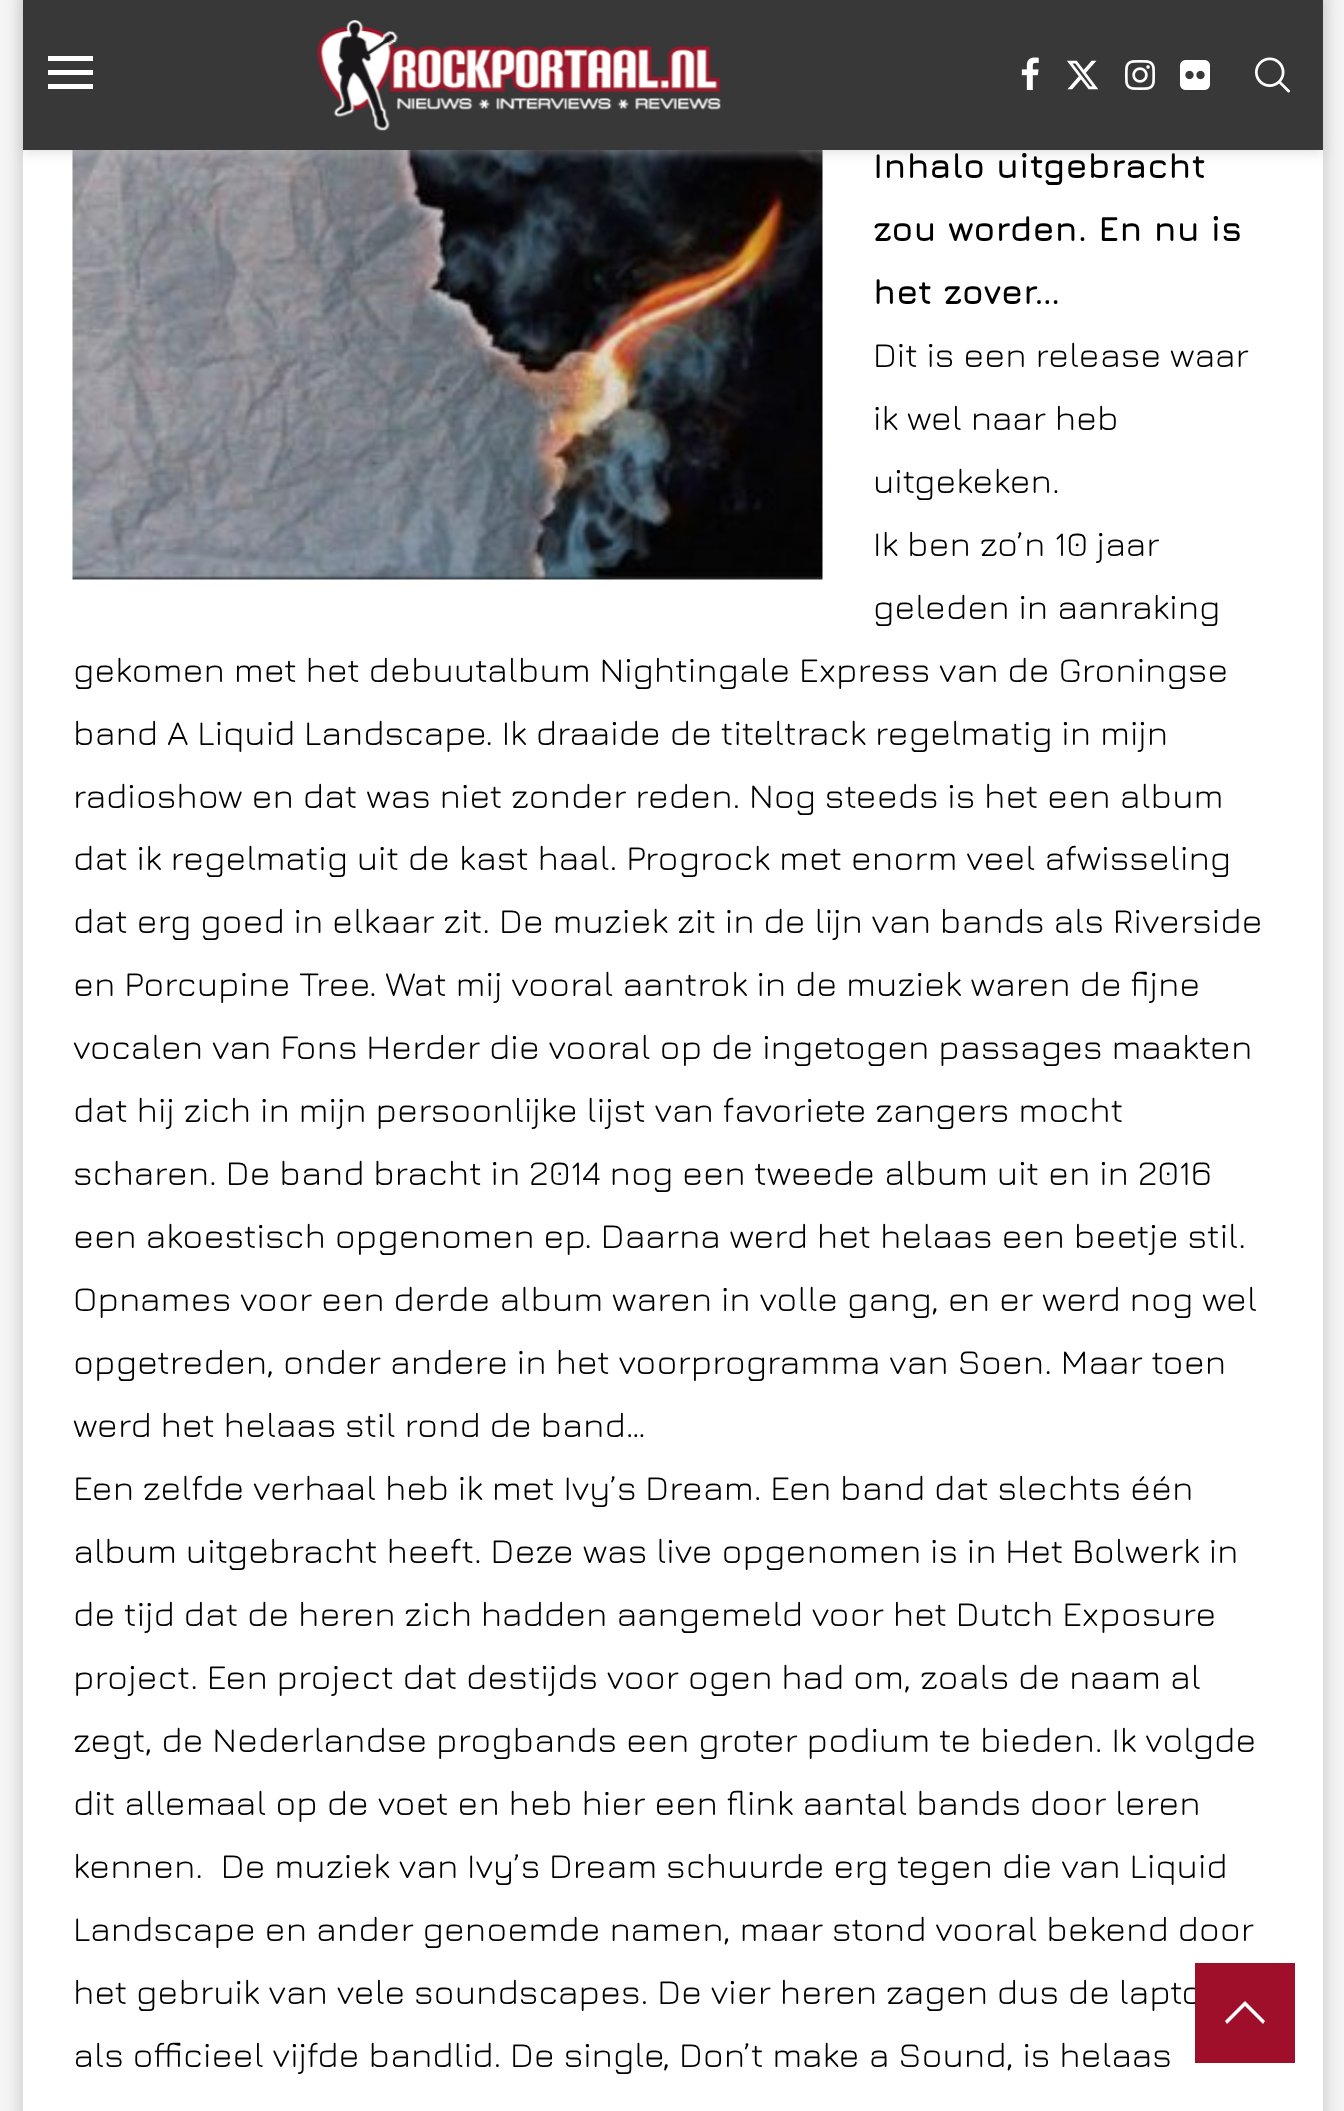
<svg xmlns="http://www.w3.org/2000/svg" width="1344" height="2111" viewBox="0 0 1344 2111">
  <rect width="100%" height="100%" fill="rgb(245,245,245)"/>
  <rect x="23" y="-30" width="1300" height="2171" fill="rgba(0,0,0,0.2)" filter="blur(10px)"/>
  <rect x="23" y="150" width="1300" height="1961" fill="rgb(255,255,255)"/>
  <image x="72" y="150" width="751" height="430" href="pic7.png"/>
  <rect x="23" y="3" width="1300" height="150" fill="rgba(190,190,190,0.46)" filter="blur(6px)"/>
  <rect x="23" y="0" width="1300" height="150" fill="rgb(56,56,56)"/>
  <rect x="48" y="56" width="45" height="5" fill="rgb(255,255,255)"/>
  <rect x="48" y="70" width="45" height="5" fill="rgb(255,255,255)"/>
  <rect x="48" y="84" width="45" height="5" fill="rgb(255,255,255)"/>
  <image x="317" y="19" width="404" height="112" href="pic1.png"/>
  <image x="1021" y="57" width="18" height="33" href="pic2.png"/>
  <image x="1067" y="60" width="32" height="30" href="pic3.png"/>
  <image x="1125" y="60" width="30" height="30" href="pic4.png"/>
  <image x="1180" y="60" width="30" height="30" href="pic5.png"/>
  <image x="1255" y="57" width="35" height="36" href="pic6.png"/>
  <g font-family="Jura" font-size="35" font-weight="bold" fill="rgb(0,0,0)">
    <text>
      <tspan x="873" y="178">Inhalo uitgebracht</tspan>
      <tspan x="873" y="241">zou worden. En nu is</tspan>
      <tspan x="873" y="304">het zover…</tspan>
    </text>
  </g>
  <g font-family="Jura" font-size="35" fill="rgb(0,0,0)">
    <text>
      <tspan x="873" y="367">Dit is een release waar</tspan>
      <tspan x="873" y="430">ik wel naar heb</tspan>
      <tspan x="873" y="493">uitgekeken.</tspan>
      <tspan x="873" y="556">Ik ben zo’n 10 jaar</tspan>
      <tspan x="873" y="619">geleden in aanraking</tspan>
    </text>
    <text xml:space="preserve"><tspan x="73" y="682">gekomen met het debuutalbum Nightingale Express van de Groningse</tspan><tspan x="73" y="745">band A Liquid Landscape. Ik draaide de titeltrack regelmatig in mijn</tspan><tspan x="73" y="808">radioshow en dat was niet zonder reden. Nog steeds is het een album</tspan><tspan x="73" y="870">dat ik regelmatig uit de kast haal. Progrock met enorm veel afwisseling</tspan><tspan x="73" y="933">dat erg goed in elkaar zit. De muziek zit in de lijn van bands als Riverside</tspan><tspan x="73" y="996">en Porcupine Tree. Wat mij vooral aantrok in de muziek waren de fijne</tspan><tspan x="73" y="1059">vocalen van Fons Herder die vooral op de ingetogen passages maakten</tspan><tspan x="73" y="1122">dat hij zich in mijn persoonlijke lijst van favoriete zangers mocht</tspan><tspan x="73" y="1185">scharen. De band bracht in 2014 nog een tweede album uit en in 2016</tspan><tspan x="73" y="1248">een akoestisch opgenomen ep. Daarna werd het helaas een beetje stil.</tspan><tspan x="73" y="1311">Opnames voor een derde album waren in volle gang, en er werd nog wel</tspan><tspan x="73" y="1374">opgetreden, onder andere in het voorprogramma van Soen. Maar toen</tspan><tspan x="73" y="1437">werd het helaas stil rond de band…</tspan><tspan x="73" y="1500">Een zelfde verhaal heb ik met Ivy’s Dream. Een band dat slechts één</tspan><tspan x="73" y="1563">album uitgebracht heeft. Deze was live opgenomen is in Het Bolwerk in</tspan><tspan x="73" y="1626">de tijd dat de heren zich hadden aangemeld voor het Dutch Exposure</tspan><tspan x="73" y="1689">project. Een project dat destijds voor ogen had om, zoals de naam al</tspan><tspan x="73" y="1752">zegt, de Nederlandse progbands een groter podium te bieden. Ik volgde</tspan><tspan x="73" y="1815">dit allemaal op de voet en heb hier een flink aantal bands door leren</tspan><tspan x="73" y="1878">kennen.  De muziek van Ivy’s Dream schuurde erg tegen die van Liquid</tspan><tspan x="73" y="1941">Landscape en ander genoemde namen, maar stond vooral bekend door</tspan><tspan x="73" y="2004">het gebruik van vele soundscapes. De vier heren zagen dus de lapto</tspan><tspan x="73" y="2067">als officieel vijfde bandlid. De single, Don’t make a Sound, is helaas</tspan></text>
  </g>
  <rect x="1195" y="1963" width="100" height="100" fill="rgb(160,15,42)"/>
  <path d="M1245 2001L1225 2021L1227 2024L1245 2006L1263 2024L1265 2021Z" fill="rgb(255,255,255)"/>
</svg>
